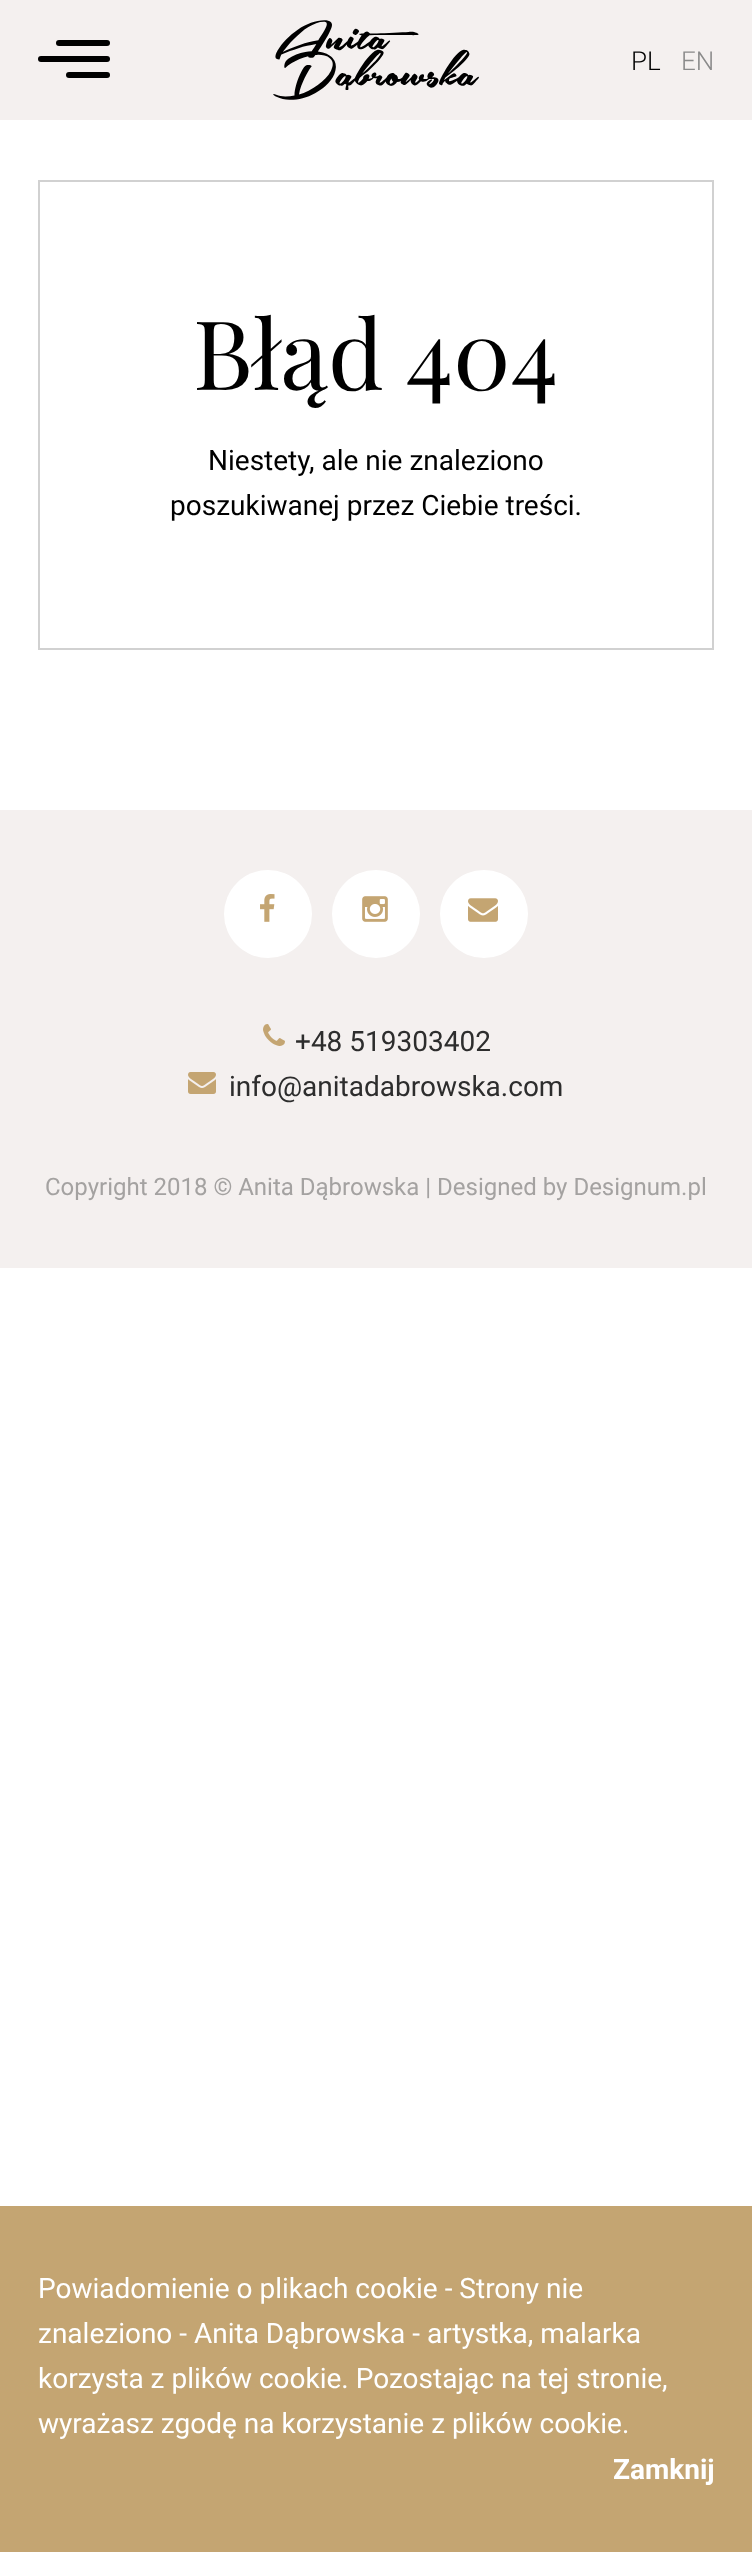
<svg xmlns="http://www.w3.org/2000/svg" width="752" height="2552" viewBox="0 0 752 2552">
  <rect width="100%" height="100%" fill="rgb(255,255,255)"/>
  <rect x="0" y="0" width="752" height="120" fill="rgb(244,240,239)"/>
  <rect x="38" y="56" width="72" height="6" rx="3" fill="rgb(0,0,0)"/>
  <rect x="56" y="40" width="54" height="6" rx="3" fill="rgb(0,0,0)"/>
  <rect x="66" y="72" width="44" height="6" rx="3" fill="rgb(0,0,0)"/>
  <image x="273" y="20" width="206" height="80" href="pic1.png"/>
  <text x="631" y="70" font-family="Roboto" font-size="26" font-weight="300" fill="rgb(0,0,0)">PL</text>
  <text x="681" y="70" font-family="Roboto" font-size="26" font-weight="300" fill="rgb(138,138,138)">EN</text>
  <rect x="39" y="181" width="674" height="468" fill="none" stroke="rgb(209,209,209)" stroke-width="2"/>
  <text x="193" y="390" font-family="Playfair Display" font-size="96" fill="rgb(0,0,0)">Błąd 404</text>
  <g font-family="Roboto" font-size="28" fill="rgb(0,0,0)">
    <text x="208" y="470">Niestety, ale nie znaleziono</text>
    <text x="170" y="515">poszukiwanej przez Ciebie treści.</text>
  </g>
  <rect x="0" y="810" width="752" height="458" fill="rgb(244,240,239)"/>
  <circle cx="268" cy="914" r="44" fill="rgb(255,255,255)"/>
  <image x="260" y="894" width="15" height="28" href="pic2.png"/>
  <circle cx="376" cy="914" r="44" fill="rgb(255,255,255)"/>
  <image x="362" y="896" width="26" height="26" href="pic3.png"/>
  <circle cx="484" cy="914" r="44" fill="rgb(255,255,255)"/>
  <image x="468" y="898" width="30" height="24" href="pic4.png"/>
  <image x="263" y="1024" width="22" height="22" href="pic5.png"/>
  <text x="295" y="1051" font-family="Roboto" font-size="28" fill="rgb(45,45,45)">+48 519303402</text>
  <image x="188" y="1072" width="28" height="22" href="pic6.png"/>
  <text x="229" y="1096" font-family="Roboto" font-size="28" fill="rgb(45,45,45)">info@anitadabrowska.com</text>
  <text x="45" y="1195" font-family="Roboto" font-size="24" fill="rgb(164,162,161)">Copyright 2018 © Anita Dąbrowska | Designed by Designum.pl</text>
  <rect x="0" y="2206" width="752" height="346" fill="rgb(196,165,114)"/>
  <g font-family="Roboto" font-size="28" fill="rgb(255,255,255)">
    <text>
      <tspan x="38" y="2298">Powiadomienie o plikach cookie - Strony nie</tspan>
      <tspan x="38" y="2343">znaleziono - Anita Dąbrowska - artystka, malarka</tspan>
      <tspan x="38" y="2388">korzysta z plików cookie. Pozostając na tej stronie,</tspan>
      <tspan x="38" y="2433">wyrażasz zgodę na korzystanie z plików cookie.</tspan>
    </text>
  </g>
  <text x="613" y="2479" font-family="Roboto" font-size="28" font-weight="bold" fill="rgb(255,255,255)">Zamknij</text>
</svg>
